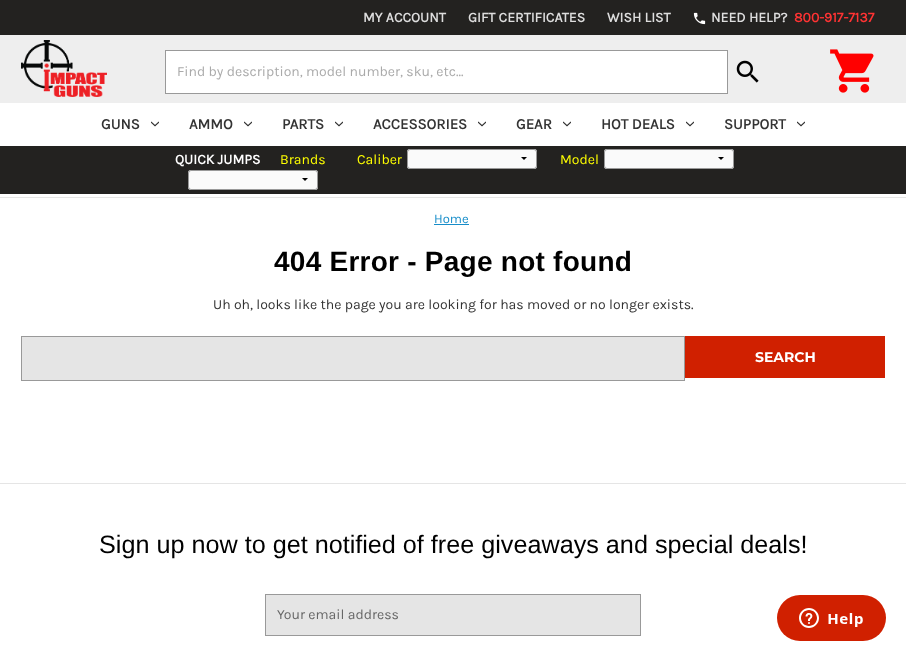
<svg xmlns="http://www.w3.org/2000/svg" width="906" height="655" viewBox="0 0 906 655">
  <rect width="100%" height="100%" fill="rgb(255,255,255)"/>
  <rect x="0" y="197" width="906" height="1" fill="rgb(229,229,229)"/>
  <rect x="0" y="0" width="906" height="35" fill="rgb(35,34,32)"/>
  <g font-family="Karla" font-size="14" font-weight="bold" fill="rgb(221,221,221)">
    <text x="363" y="22">MY ACCOUNT</text>
    <text x="468" y="22">GIFT CERTIFICATES</text>
    <text x="607" y="22">WISH LIST</text>
  </g>
  <image x="693" y="12" width="13" height="13" href="pic1.png"/>
  <text x="711" y="22" font-family="Karla" font-size="14" font-weight="bold" fill="rgb(221,221,221)">NEED HELP?</text>
  <text x="794" y="22" font-family="Karla" font-size="14" font-weight="bold" fill="rgb(255,51,51)">800-917-7137</text>
  <rect x="0" y="35" width="906" height="68" fill="rgb(238,238,238)"/>
  <image x="21" y="40" width="86" height="57" href="pic2.png"/>
  <rect x="165.5" y="50.5" width="562" height="43" fill="rgb(255,255,255)" stroke="rgb(153,153,153)"/>
  <text x="177" y="76" font-family="Karla" font-size="14" fill="rgb(170,170,170)">Find by description, model number, sku, etc...</text>
  <image x="736" y="60" width="23" height="23" href="pic3.png"/>
  <image x="830" y="49" width="44" height="44" href="pic4.png"/>
  <text x="101" y="129" font-family="Karla" font-size="15" font-weight="bold" fill="rgb(51,51,51)">GUNS</text>
  <image x="151" y="121" width="8" height="6" href="pic5.png"/>
  <text x="189" y="129" font-family="Karla" font-size="15" font-weight="bold" fill="rgb(51,51,51)">AMMO</text>
  <image x="244" y="121" width="8" height="6" href="pic5.png"/>
  <text x="282" y="129" font-family="Karla" font-size="15" font-weight="bold" fill="rgb(51,51,51)">PARTS</text>
  <image x="335" y="121" width="8" height="6" href="pic5.png"/>
  <text x="373" y="129" font-family="Karla" font-size="15" font-weight="bold" fill="rgb(51,51,51)">ACCESSORIES</text>
  <image x="478" y="121" width="8" height="6" href="pic5.png"/>
  <text x="516" y="129" font-family="Karla" font-size="15" font-weight="bold" fill="rgb(51,51,51)">GEAR</text>
  <image x="563" y="121" width="8" height="6" href="pic5.png"/>
  <text x="601" y="129" font-family="Karla" font-size="15" font-weight="bold" fill="rgb(51,51,51)">HOT DEALS</text>
  <image x="686" y="121" width="8" height="6" href="pic5.png"/>
  <text x="724" y="129" font-family="Karla" font-size="15" font-weight="bold" fill="rgb(51,51,51)">SUPPORT</text>
  <image x="797" y="121" width="8" height="6" href="pic5.png"/>
  <rect x="0" y="146" width="906" height="48" fill="rgb(35,34,32)"/>
  <text x="175" y="164" font-family="Karla" font-size="14" font-weight="bold" fill="rgb(255,255,255)">QUICK JUMPS</text>
  <text x="280" y="164" font-family="Karla" font-size="14" fill="rgb(255,255,0)">Brands</text>
  <rect x="188" y="170" width="130" height="20" rx="3" fill="rgb(250,250,250)"/>
  <path d="M308 178L305 181L302 178Z" fill="rgb(0,0,0)"/>
  <rect x="188.5" y="170.5" width="129" height="19" rx="2.5" fill="none" stroke="rgb(153,153,153)"/>
  <text x="357" y="164" font-family="Karla" font-size="14" fill="rgb(255,255,0)">Caliber</text>
  <rect x="407" y="149" width="130" height="20" rx="3" fill="rgb(250,250,250)"/>
  <path d="M527 157L524 160L521 157Z" fill="rgb(0,0,0)"/>
  <rect x="407.5" y="149.5" width="129" height="19" rx="2.5" fill="none" stroke="rgb(153,153,153)"/>
  <text x="560" y="164" font-family="Karla" font-size="14" fill="rgb(255,255,0)">Model</text>
  <rect x="604" y="149" width="130" height="20" rx="3" fill="rgb(250,250,250)"/>
  <path d="M724 157L721 160L718 157Z" fill="rgb(0,0,0)"/>
  <rect x="604.5" y="149.5" width="129" height="19" rx="2.5" fill="none" stroke="rgb(153,153,153)"/>
  <text x="434" y="223" font-family="Karla" font-size="13" fill="rgb(23,141,201)">Home</text>
  <rect x="434" y="224" width="35" height="1" fill="rgb(23,141,201)"/>
  <text x="274" y="271" font-family="Liberation Sans" font-size="28" font-weight="bold" letter-spacing="0.25" fill="rgb(0,0,0)">404 Error - Page not found</text>
  <text x="213" y="309" font-family="Karla" font-size="14" fill="rgb(51,51,51)">Uh oh, looks like the page you are looking for has moved or no longer exists.</text>
  <rect x="21.5" y="336.5" width="663" height="44" fill="rgb(229,229,229)" stroke="rgb(153,153,153)"/>
  <rect x="685" y="336" width="200" height="42" fill="rgb(208,32,0)"/>
  <text x="755" y="362" font-family="Montserrat" font-size="14" font-weight="bold" fill="rgb(255,255,255)">SEARCH</text>
  <rect x="0" y="483" width="906" height="1" fill="rgb(229,229,229)"/>
  <text x="99" y="553" font-family="Liberation Sans" font-size="25.2" fill="rgb(0,0,0)">Sign up now to get notified of free giveaways and special deals!</text>
  <rect x="265.5" y="594.5" width="375" height="41" fill="rgb(229,229,229)" stroke="rgb(153,153,153)"/>
  <text x="277" y="619" font-family="Karla" font-size="14" fill="rgb(102,102,102)">Your email address</text>
  <image x="777" y="595" width="109" height="46" href="pic6.png"/>
</svg>
